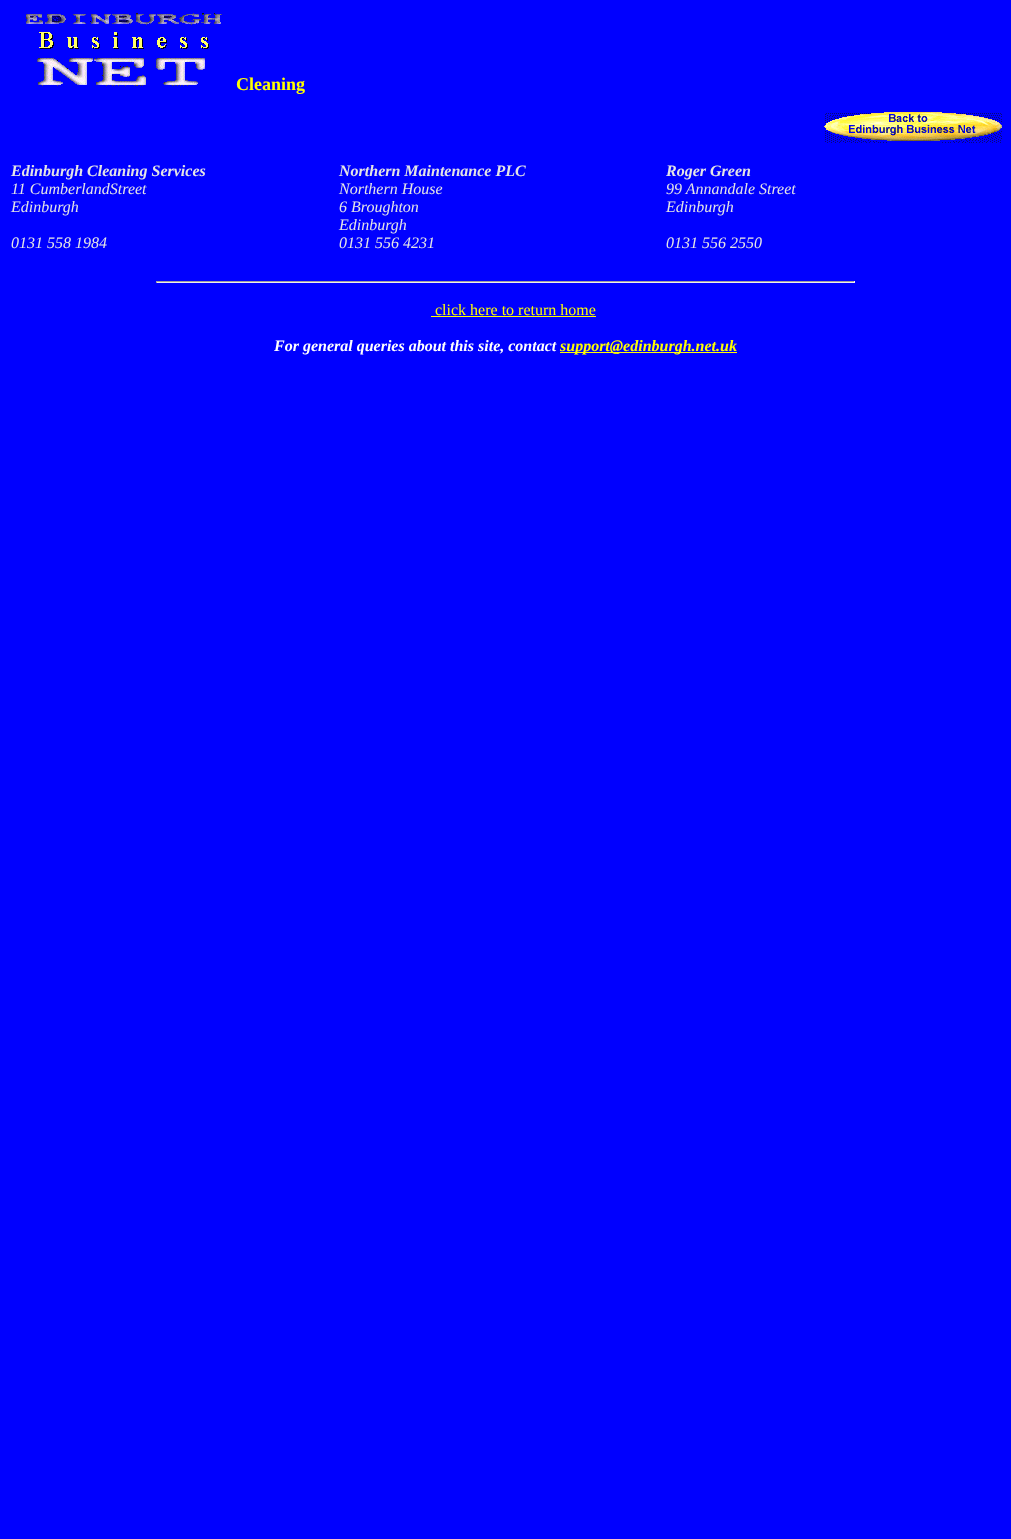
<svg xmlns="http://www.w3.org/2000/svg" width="1011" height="1539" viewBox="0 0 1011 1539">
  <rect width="100%" height="100%" fill="rgb(0,0,255)"/>
  <image x="26" y="13" width="196" height="73" href="pic1.png"/>
  <text x="236" y="90" font-family="Liberation Serif" font-size="18" font-weight="bold" fill="rgb(255,255,0)">Cleaning</text>
  <image x="824" y="112" width="178" height="31" href="pic2.png"/>
  <text x="11" y="176" font-family="Liberation Serif" font-size="16" font-weight="bold" font-style="italic" fill="rgb(229,229,229)">Edinburgh Cleaning Services</text>
  <g font-family="Liberation Serif" font-size="16" font-style="italic" fill="rgb(229,229,229)">
    <text>
      <tspan x="11" y="194">11 CumberlandStreet</tspan>
      <tspan x="11" y="212">Edinburgh</tspan>
    </text>
    <text x="11" y="248">0131 558 1984</text>
  </g>
  <text x="339" y="176" font-family="Liberation Serif" font-size="16" font-weight="bold" font-style="italic" fill="rgb(229,229,229)">Northern Maintenance PLC</text>
  <g font-family="Liberation Serif" font-size="16" font-style="italic" fill="rgb(229,229,229)">
    <text>
      <tspan x="339" y="194">Northern House</tspan>
      <tspan x="339" y="212">6 Broughton</tspan>
      <tspan x="339" y="230">Edinburgh</tspan>
      <tspan x="339" y="248">0131 556 4231</tspan>
    </text>
  </g>
  <text x="666" y="176" font-family="Liberation Serif" font-size="16" font-weight="bold" font-style="italic" fill="rgb(229,229,229)">Roger Green</text>
  <g font-family="Liberation Serif" font-size="16" font-style="italic" fill="rgb(229,229,229)">
    <text>
      <tspan x="666" y="194">99 Annandale Street</tspan>
      <tspan x="666" y="212">Edinburgh</tspan>
    </text>
    <text x="666" y="248">0131 556 2550</text>
  </g>
  <rect x="156" y="281" width="699" height="1" fill="rgb(159,159,159)"/>
  <rect x="854" y="281" width="1" height="2" fill="rgb(238,238,238)"/>
  <rect x="156" y="282" width="699" height="1" fill="rgb(238,238,238)"/>
  <rect x="156" y="281" width="1" height="2" fill="rgb(159,159,159)"/>
  <text x="435" y="315" font-family="Liberation Serif" font-size="16" fill="rgb(255,255,0)">click here to return home</text>
  <rect x="431" y="316" width="165" height="1" fill="rgb(255,255,0)"/>
  <text x="274" y="351" font-family="Liberation Serif" font-size="16" font-weight="bold" font-style="italic" fill="rgb(255,255,255)">For general queries about this site, contact</text>
  <rect x="560" y="352" width="177" height="1" fill="rgb(255,255,0)"/>
  <text x="560" y="351" font-family="Liberation Serif" font-size="16" font-weight="bold" font-style="italic" fill="rgb(255,255,0)">support@edinburgh.net.uk</text>
</svg>
